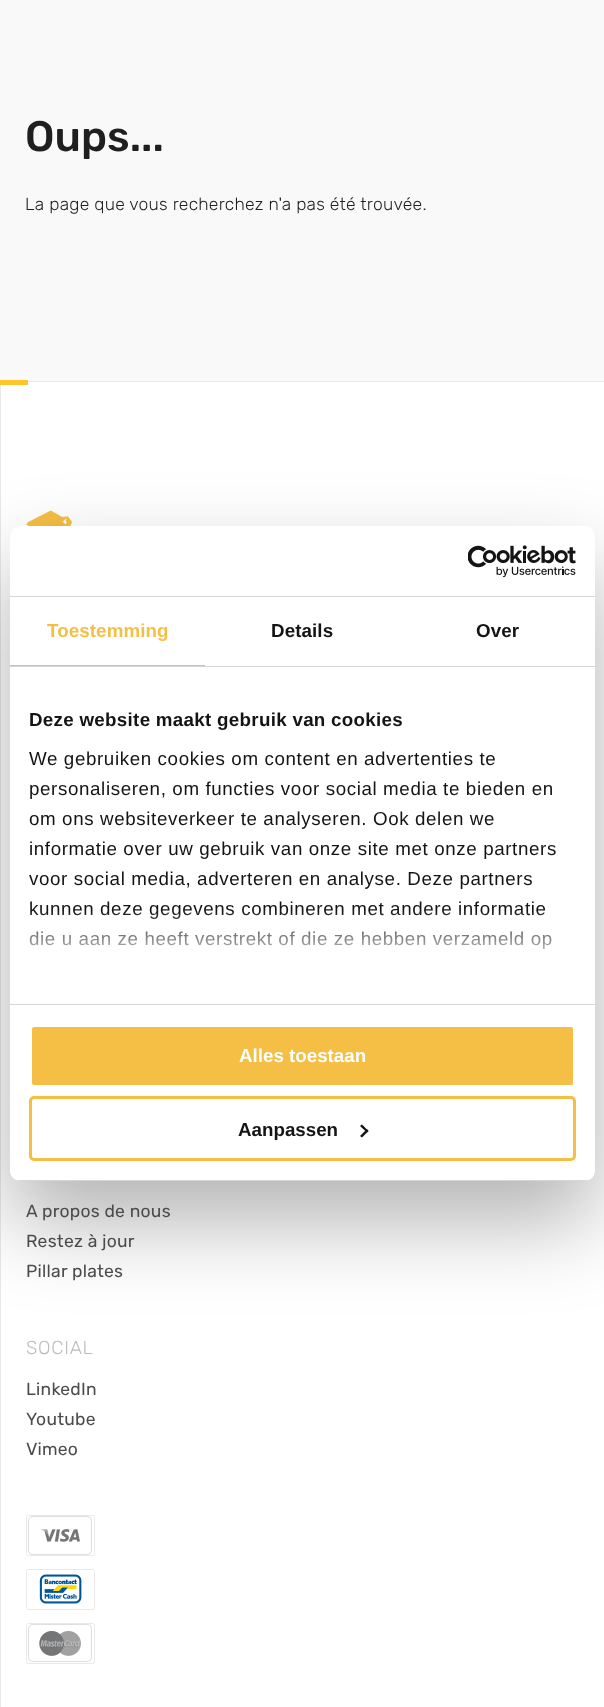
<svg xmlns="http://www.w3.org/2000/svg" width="604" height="1707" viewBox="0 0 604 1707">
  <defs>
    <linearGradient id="g1" gradientUnits="userSpaceOnUse" x1="294" y1="1004" x2="294" y2="910"><stop offset="0" stop-color="rgb(255,255,255)"/><stop offset="0.5" stop-color="rgb(255,255,255)" stop-opacity="0.8"/><stop offset="1" stop-color="rgb(255,255,255)" stop-opacity="0"/></linearGradient>
    <clipPath id="clip1"><rect x="10" y="526" width="585" height="655" rx="10"/></clipPath>
  </defs>
  <rect width="100%" height="100%" fill="rgb(249,249,249)"/>
  <text x="25" y="151" font-family="Rubik" font-size="42.5" font-weight="500" fill="rgb(31,31,31)">Oups...</text>
  <text x="25" y="210" font-family="Rubik" font-size="17.5" font-weight="300" letter-spacing="0.25" fill="rgb(31,31,31)">La page que vous recherchez n'a pas été trouvée.</text>
  <rect x="0.5" y="381.5" width="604" height="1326" fill="rgb(255,255,255)" stroke="rgb(233,233,233)"/>
  <image x="26" y="510" width="46" height="16" href="pic2.png"/>
  <rect x="10" y="566" width="585" height="655" rx="10" fill="rgba(0,0,0,0.3)" filter="blur(42.5px)"/>
  <rect x="10" y="526" width="585" height="655" rx="10" fill="rgb(255,255,255)"/>
  <rect x="10" y="596" width="585" height="1" fill="rgb(214,214,214)"/>
  <image x="468" y="545" width="108" height="33" href="pic1.png"/>
  <rect x="10" y="666" width="585" height="1" fill="rgb(214,214,214)"/>
  <rect x="10" y="665" width="195" height="1" fill="rgb(245,191,69)"/>
  <text x="47" y="637" font-family="Liberation Sans" font-size="18.75" font-weight="bold" letter-spacing="0.1" fill="rgb(245,191,69)">Toestemming</text>
  <g font-family="Liberation Sans" font-size="18.75" font-weight="bold" letter-spacing="0.1" fill="rgb(20,20,20)">
    <text x="271" y="637">Details</text>
    <text x="476" y="637">Over</text>
  </g>
  <rect x="10" y="1004" width="585" height="1" fill="rgb(214,214,214)"/>
  <text x="29" y="726" font-family="Liberation Sans" font-size="18.75" font-weight="bold" letter-spacing="0.3" fill="rgb(20,20,20)">Deze website maakt gebruik van cookies</text>
  <g font-family="Liberation Sans" font-size="18.75" letter-spacing="0.62" fill="rgb(20,20,20)">
    <text>
      <tspan x="29" y="765">We gebruiken cookies om content en advertenties te</tspan>
      <tspan x="29" y="795">personaliseren, om functies voor social media te bieden en</tspan>
      <tspan x="29" y="825">om ons websiteverkeer te analyseren. Ook delen we</tspan>
      <tspan x="29" y="855">informatie over uw gebruik van onze site met onze partners</tspan>
      <tspan x="29" y="885">voor social media, adverteren en analyse. Deze partners</tspan>
      <tspan x="29" y="915">kunnen deze gegevens combineren met andere informatie</tspan>
      <tspan x="29" y="945">die u aan ze heeft verstrekt of die ze hebben verzameld op</tspan>
    </text>
  </g>
  <rect x="29" y="911" width="523" height="38" fill="url(#g1)"/>
  <g clip-path="url(#clip1)">
    <rect x="10" y="1180" width="585" height="1" fill="rgb(214,214,214)"/>
  </g>
  <rect x="30.5" y="1025.5" width="544" height="61" rx="3.5" fill="rgb(245,191,69)" stroke="rgb(255,255,255)" stroke-width="3"/>
  <text x="239" y="1062" font-family="Liberation Sans" font-size="18.75" font-weight="bold" fill="rgb(255,255,255)">Alles toestaan</text>
  <rect x="30.5" y="1097.5" width="544" height="62" rx="3.5" fill="none" stroke="rgb(245,191,69)" stroke-width="3"/>
  <text x="238" y="1136" font-family="Liberation Sans" font-size="18.75" font-weight="bold" fill="rgb(20,20,20)">Aanpassen</text>
  <path d="M362 1124.5L368.5 1131L367 1132.5L360 1126Z" fill="rgb(20,20,20)"/>
  <path d="M367 1129L368.5 1131L362 1137.5L360 1136Z" fill="rgb(20,20,20)"/>
  <rect x="0" y="380" width="28" height="5" fill="rgb(253,198,44)"/>
  <g font-family="Rubik" font-size="17.5" letter-spacing="0.25" fill="rgb(76,76,76)">
    <text>
      <tspan x="26" y="1217">A propos de nous</tspan>
      <tspan x="26" y="1247">Restez à jour</tspan>
      <tspan x="26" y="1277">Pillar plates</tspan>
    </text>
  </g>
  <text x="26" y="1354" font-family="Rubik" font-size="18.75" font-weight="300" letter-spacing="0.75" fill="rgb(188,188,188)">SOCIAL</text>
  <g font-family="Rubik" font-size="17.5" letter-spacing="0.25" fill="rgb(76,76,76)">
    <text>
      <tspan x="26" y="1395">LinkedIn</tspan>
      <tspan x="26" y="1425">Youtube</tspan>
      <tspan x="26" y="1455">Vimeo</tspan>
    </text>
  </g>
  <rect x="26.5" y="1515.5" width="68" height="40" rx="2" fill="none" stroke="rgb(233,233,233)"/>
  <image x="28" y="1516" width="64" height="39" href="pic3.png"/>
  <rect x="26.5" y="1569.5" width="68" height="40" rx="2" fill="none" stroke="rgb(233,233,233)"/>
  <image x="39" y="1574" width="43" height="30" href="pic4.png"/>
  <rect x="26.5" y="1623.5" width="68" height="40" rx="2" fill="none" stroke="rgb(233,233,233)"/>
  <image x="28" y="1624" width="64" height="38" href="pic5.png"/>
</svg>
